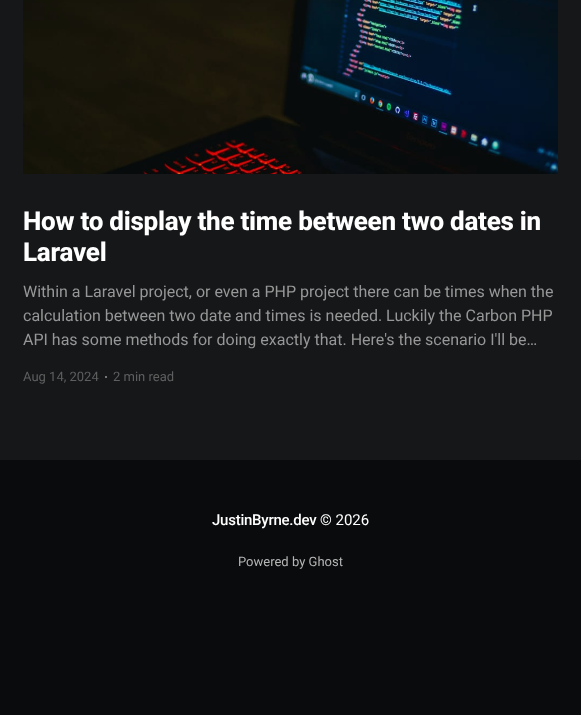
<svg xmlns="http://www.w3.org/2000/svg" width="581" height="715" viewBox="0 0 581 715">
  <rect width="100%" height="100%" fill="rgb(21,23,25)"/>
  <image x="23" y="0" width="535" height="174" href="pic1.png"/>
  <g font-family="Roboto" font-size="26" font-weight="800" letter-spacing="-0.25" fill="rgb(255,255,255)">
    <text>
      <tspan x="23" y="230">How to display the time between two dates in</tspan>
      <tspan x="23" y="261">Laravel</tspan>
    </text>
  </g>
  <g font-family="Roboto" font-size="16" fill="rgb(151,151,151)">
    <text>
      <tspan x="23" y="297">Within a Laravel project, or even a PHP project there can be times when the</tspan>
      <tspan x="23" y="321">calculation between two date and times is needed. Luckily the Carbon PHP</tspan>
      <tspan x="23" y="345">API has some methods for doing exactly that. Here's the scenario I'll be…</tspan>
    </text>
  </g>
  <text x="23" y="381" font-family="Roboto" font-size="13" fill="rgb(95,95,95)">Aug 14, 2024</text>
  <circle cx="106" cy="377" r="1" fill="rgb(151,151,151)"/>
  <text x="113" y="381" font-family="Roboto" font-size="13" fill="rgb(95,95,95)">2 min read</text>
  <rect x="0" y="460" width="581" height="255" fill="rgb(10,11,12)"/>
  <text x="212" y="525" font-family="Roboto" font-size="15" font-weight="500" letter-spacing="-0.25" fill="rgb(255,255,255)">JustinByrne.dev</text>
  <text x="320" y="525" font-family="Roboto" font-size="15" fill="rgb(255,255,255)">© 2026</text>
  <text x="238" y="566" font-family="Roboto" font-size="13" fill="rgb(182,182,182)">Powered by Ghost</text>
</svg>
